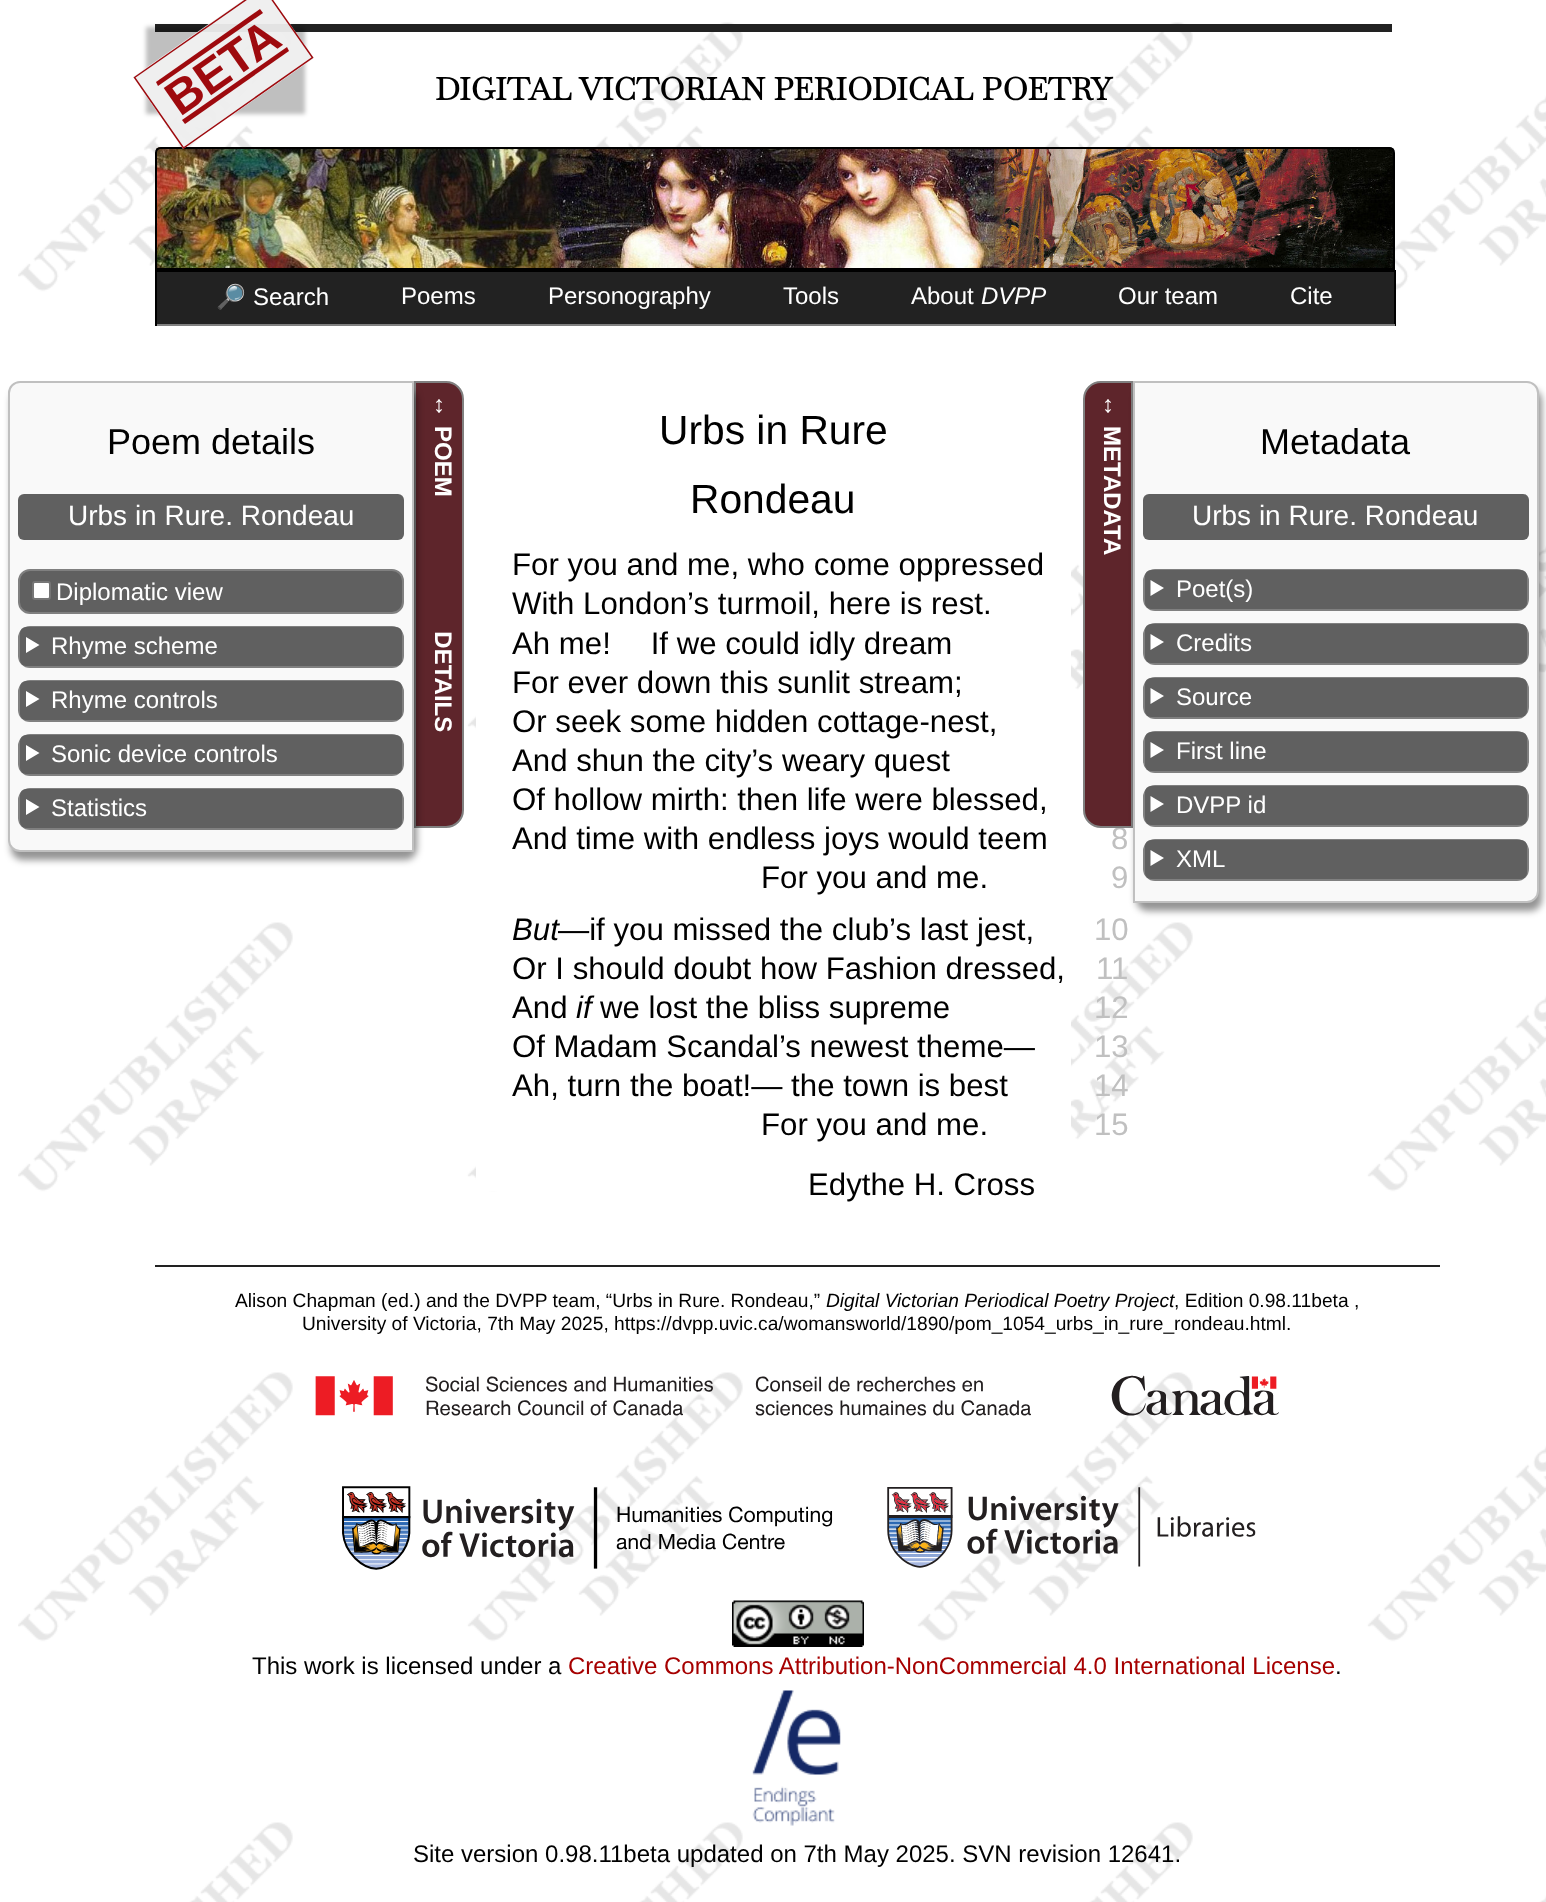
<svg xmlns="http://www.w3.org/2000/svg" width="1546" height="1902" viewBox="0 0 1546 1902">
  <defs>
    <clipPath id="clip1"><path d="M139 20H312V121H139ZM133.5 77.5L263.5-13.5L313.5 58L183.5 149Z" clip-rule="evenodd"/></clipPath>
  </defs>
  <rect width="100%" height="100%" fill="rgb(255,255,255)"/>
  <image x="18" y="22" width="1528" height="1880" href="pic1.png"/>
  <rect x="155" y="24" width="1237" height="8" fill="rgb(34,34,34)"/>
  <g clip-path="url(#clip1)">
    <rect x="146" y="27" width="159" height="87" fill="rgba(0,0,0,0.25)" filter="blur(2px)"/>
  </g>
  <image x="156" y="147" width="1238" height="121" href="pic2.png"/>
  <path d="M161 148H1389C1392 148 1394 150 1394 153V269H156V153C156 150 158 148 161 148Z" fill="none" stroke="rgb(0,0,0)" stroke-width="2"/>
  <path d="M133 77L263-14L314 58L183 149Z" fill="rgba(238,238,238,0.95)"/>
  <path d="M134.5 77.5L263.5-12.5L312.5 57.5L183.5 148Z" fill="none" stroke="rgb(158,10,14)" stroke-width="1.5"/>
  <path d="M182 120L287 47L289 51L185 124Z" fill="rgb(158,10,14)"/>
  <path d="M156 82L260 9L263 13L158 86Z" fill="rgb(158,10,14)"/>
  <text x="180" y="117" transform="rotate(-35 180 117)" font-family="Liberation Sans" font-size="48" font-weight="bold" fill="rgb(158,10,14)">BETA</text>
  <text x="435" y="100" font-family="Baskervville" font-size="31.2" font-weight="bold" fill="rgb(0,0,0)">DIGITAL VICTORIAN PERIODICAL POETRY</text>
  <rect x="157" y="272" width="1237" height="52" fill="rgb(34,34,34)"/>
  <rect x="155" y="270" width="1240" height="2" fill="rgb(0,0,0)"/>
  <rect x="1394" y="270" width="2" height="56" fill="rgb(0,0,0)"/>
  <rect x="155" y="324" width="1240" height="2" fill="rgb(128,128,128)"/>
  <rect x="155" y="270" width="2" height="56" fill="rgb(0,0,0)"/>
  <text x="216" y="305" font-family="Noto Color Emoji" font-size="24" fill="rgb(255,255,255)">🔎</text>
  <g font-family="Liberation Sans" font-size="24" fill="rgb(255,255,255)">
    <text x="253" y="305">Search</text>
    <text x="401" y="304">Poems</text>
    <text x="548" y="304">Personography</text>
    <text x="783" y="304">Tools</text>
    <text x="911" y="304">About</text>
  </g>
  <text x="981" y="304" font-family="Liberation Sans" font-size="24" font-style="italic" fill="rgb(255,255,255)">DVPP</text>
  <g font-family="Liberation Sans" font-size="24" fill="rgb(255,255,255)">
    <text x="1118" y="304">Our team</text>
    <text x="1290" y="304">Cite</text>
  </g>
  <path d="M415 382H446C455.5 382 463 389.5 463 399V810C463 819.5 455.5 827 446 827H415Z" fill="rgb(94,37,43)" stroke="rgb(128,128,128)" stroke-width="2"/>
  <rect x="11" y="389" width="406" height="471" rx="12" fill="rgba(0,0,0,0.42)" filter="blur(3.5px)"/>
  <path d="M20 382H413V851H20C14 851 9 846 9 840V393C9 387 14 382 20 382Z" fill="rgb(249,249,249)" stroke="rgb(192,192,192)" stroke-width="2"/>
  <text x="107" y="454" font-family="Liberation Sans" font-size="36" fill="rgb(0,0,0)">Poem details</text>
  <rect x="18" y="494" width="386" height="46" rx="6" fill="rgb(96,96,96)"/>
  <text x="68" y="525" font-family="Liberation Sans" font-size="28" fill="rgb(255,255,255)">Urbs in Rure. Rondeau</text>
  <rect x="19" y="570" width="384" height="43" rx="11" fill="rgb(96,96,96)" stroke="rgb(128,128,128)" stroke-width="2"/>
  <rect x="33" y="582" width="17" height="17" rx="2" fill="rgb(255,255,255)" stroke="rgb(118,118,118)" stroke-width="2"/>
  <text x="56" y="600" font-family="Liberation Sans" font-size="24" fill="rgb(255,255,255)">Diplomatic view</text>
  <rect x="19" y="627" width="384" height="40" rx="11" fill="none" stroke="rgb(128,128,128)" stroke-width="2"/>
  <rect x="20" y="627" width="382" height="39" rx="6" fill="rgb(96,96,96)"/>
  <path d="M26 637L39.5 645L26 653Z" fill="rgb(255,255,255)"/>
  <text x="51" y="654" font-family="Liberation Sans" font-size="24" fill="rgb(255,255,255)">Rhyme scheme</text>
  <rect x="19" y="681" width="384" height="40" rx="11" fill="none" stroke="rgb(128,128,128)" stroke-width="2"/>
  <rect x="20" y="681" width="382" height="39" rx="6" fill="rgb(96,96,96)"/>
  <path d="M26 691L39.5 699L26 707Z" fill="rgb(255,255,255)"/>
  <text x="51" y="708" font-family="Liberation Sans" font-size="24" fill="rgb(255,255,255)">Rhyme controls</text>
  <rect x="19" y="735" width="384" height="40" rx="11" fill="none" stroke="rgb(128,128,128)" stroke-width="2"/>
  <rect x="20" y="735" width="382" height="39" rx="6" fill="rgb(96,96,96)"/>
  <path d="M26 745L39.5 753L26 761Z" fill="rgb(255,255,255)"/>
  <text x="51" y="762" font-family="Liberation Sans" font-size="24" fill="rgb(255,255,255)">Sonic device controls</text>
  <rect x="19" y="789" width="384" height="40" rx="11" fill="none" stroke="rgb(128,128,128)" stroke-width="2"/>
  <rect x="20" y="789" width="382" height="39" rx="6" fill="rgb(96,96,96)"/>
  <path d="M26 799L39.5 807L26 815Z" fill="rgb(255,255,255)"/>
  <text x="51" y="816" font-family="Liberation Sans" font-size="24" fill="rgb(255,255,255)">Statistics</text>
  <g font-family="Liberation Sans" font-size="24" font-weight="bold" fill="rgb(255,255,255)">
    <text x="435" y="394" transform="rotate(90 435 394)">↔</text>
    <text x="435" y="426" transform="rotate(90 435 426)" word-spacing="128">POEM DETAILS</text>
  </g>
  <rect x="476" y="472" width="595" height="719" fill="rgb(255,255,255)"/>
  <g font-family="Liberation Sans" font-size="40.75" fill="rgb(0,0,0)">
    <text x="659" y="444">Urbs in Rure</text>
    <text x="690" y="513">Rondeau</text>
  </g>
  <g font-family="Liberation Sans" font-size="31.2" fill="rgb(0,0,0)">
    <text>
      <tspan x="512" y="575">For you and me, who come oppressed</tspan>
      <tspan x="512" y="614">With London’s turmoil, here is rest.</tspan>
      <tspan x="512" y="654">Ah me!  If we could idly dream</tspan>
      <tspan x="512" y="693">For ever down this sunlit stream;</tspan>
      <tspan x="512" y="732">Or seek some hidden cottage-nest,</tspan>
      <tspan x="512" y="771">And shun the city’s weary quest</tspan>
      <tspan x="512" y="810">Of hollow mirth: then life were blessed,</tspan>
      <tspan x="512" y="849">And time with endless joys would teem</tspan>
    </text>
  </g>
  <text x="1111" y="849" font-family="Liberation Sans" font-size="31.2" fill="rgb(192,192,192)">8</text>
  <text x="761" y="888" font-family="Liberation Sans" font-size="31.2" fill="rgb(0,0,0)">For you and me.</text>
  <text x="1111" y="888" font-family="Liberation Sans" font-size="31.2" fill="rgb(192,192,192)">9</text>
  <text x="512" y="940" font-family="Liberation Sans" font-size="31.2" font-style="italic" fill="rgb(0,0,0)">But</text>
  <text x="558" y="940" font-family="Liberation Sans" font-size="31.2" fill="rgb(0,0,0)">—if you missed the club’s last jest,</text>
  <text x="1094" y="940" font-family="Liberation Sans" font-size="31.2" fill="rgb(192,192,192)">10</text>
  <text x="512" y="979" font-family="Liberation Sans" font-size="31.2" fill="rgb(0,0,0)">Or I should doubt how Fashion dressed,</text>
  <text x="1096" y="979" font-family="Liberation Sans" font-size="31.2" fill="rgb(192,192,192)">11</text>
  <text x="512" y="1018" font-family="Liberation Sans" font-size="31.2" fill="rgb(0,0,0)">And</text>
  <text x="576" y="1018" font-family="Liberation Sans" font-size="31.2" font-style="italic" fill="rgb(0,0,0)">if</text>
  <text x="600" y="1018" font-family="Liberation Sans" font-size="31.2" fill="rgb(0,0,0)">we lost the bliss supreme</text>
  <text x="1094" y="1018" font-family="Liberation Sans" font-size="31.2" fill="rgb(192,192,192)">12</text>
  <text x="512" y="1057" font-family="Liberation Sans" font-size="31.2" fill="rgb(0,0,0)">Of Madam Scandal’s newest theme—</text>
  <text x="1094" y="1057" font-family="Liberation Sans" font-size="31.2" fill="rgb(192,192,192)">13</text>
  <text x="512" y="1096" font-family="Liberation Sans" font-size="31.2" fill="rgb(0,0,0)">Ah, turn the boat!— the town is best</text>
  <text x="1094" y="1096" font-family="Liberation Sans" font-size="31.2" fill="rgb(192,192,192)">14</text>
  <text x="761" y="1135" font-family="Liberation Sans" font-size="31.2" fill="rgb(0,0,0)">For you and me.</text>
  <text x="1094" y="1135" font-family="Liberation Sans" font-size="31.2" fill="rgb(192,192,192)">15</text>
  <text x="808" y="1195" font-family="Liberation Sans" font-size="31.2" fill="rgb(0,0,0)">Edythe H. Cross</text>
  <path d="M1101 382H1132V827H1101C1091.5 827 1084 819.5 1084 810V399C1084 389.5 1091.5 382 1101 382Z" fill="rgb(94,37,43)" stroke="rgb(128,128,128)" stroke-width="2"/>
  <g font-family="Liberation Sans" font-size="24" font-weight="bold" fill="rgb(255,255,255)">
    <text x="1104" y="394" transform="rotate(90 1104 394)">↔</text>
    <text x="1104" y="426" transform="rotate(90 1104 426)">METADATA</text>
  </g>
  <rect x="1136" y="389" width="406" height="522" rx="12" fill="rgba(0,0,0,0.42)" filter="blur(3.5px)"/>
  <path d="M1134 382H1527C1533 382 1538 387 1538 393V891C1538 897 1533 902 1527 902H1134Z" fill="rgb(249,249,249)" stroke="rgb(192,192,192)" stroke-width="2"/>
  <text x="1260" y="454" font-family="Liberation Sans" font-size="36" fill="rgb(0,0,0)">Metadata</text>
  <rect x="1143" y="494" width="386" height="46" rx="6" fill="rgb(96,96,96)"/>
  <text x="1192" y="525" font-family="Liberation Sans" font-size="28" fill="rgb(255,255,255)">Urbs in Rure. Rondeau</text>
  <rect x="1144" y="570" width="384" height="40" rx="11" fill="none" stroke="rgb(128,128,128)" stroke-width="2"/>
  <rect x="1145" y="570" width="382" height="39" rx="6" fill="rgb(96,96,96)"/>
  <path d="M1150.5 580L1164 588L1150.5 596Z" fill="rgb(255,255,255)"/>
  <text x="1176" y="597" font-family="Liberation Sans" font-size="24" fill="rgb(255,255,255)">Poet(s)</text>
  <rect x="1144" y="624" width="384" height="40" rx="11" fill="none" stroke="rgb(128,128,128)" stroke-width="2"/>
  <rect x="1145" y="624" width="382" height="39" rx="6" fill="rgb(96,96,96)"/>
  <path d="M1150.5 634L1164 642L1150.5 650Z" fill="rgb(255,255,255)"/>
  <text x="1176" y="651" font-family="Liberation Sans" font-size="24" fill="rgb(255,255,255)">Credits</text>
  <rect x="1144" y="678" width="384" height="40" rx="11" fill="none" stroke="rgb(128,128,128)" stroke-width="2"/>
  <rect x="1145" y="678" width="382" height="39" rx="6" fill="rgb(96,96,96)"/>
  <path d="M1150.5 688L1164 696L1150.5 704Z" fill="rgb(255,255,255)"/>
  <text x="1176" y="705" font-family="Liberation Sans" font-size="24" fill="rgb(255,255,255)">Source</text>
  <rect x="1144" y="732" width="384" height="40" rx="11" fill="none" stroke="rgb(128,128,128)" stroke-width="2"/>
  <rect x="1145" y="732" width="382" height="39" rx="6" fill="rgb(96,96,96)"/>
  <path d="M1150.5 742L1164 750L1150.5 758Z" fill="rgb(255,255,255)"/>
  <text x="1176" y="759" font-family="Liberation Sans" font-size="24" fill="rgb(255,255,255)">First line</text>
  <rect x="1144" y="786" width="384" height="40" rx="11" fill="none" stroke="rgb(128,128,128)" stroke-width="2"/>
  <rect x="1145" y="786" width="382" height="39" rx="6" fill="rgb(96,96,96)"/>
  <path d="M1150.5 796L1164 804L1150.5 812Z" fill="rgb(255,255,255)"/>
  <text x="1176" y="813" font-family="Liberation Sans" font-size="24" fill="rgb(255,255,255)">DVPP id</text>
  <rect x="1144" y="840" width="384" height="40" rx="11" fill="none" stroke="rgb(128,128,128)" stroke-width="2"/>
  <rect x="1145" y="840" width="382" height="39" rx="6" fill="rgb(96,96,96)"/>
  <path d="M1150.5 850L1164 858L1150.5 866Z" fill="rgb(255,255,255)"/>
  <text x="1176" y="867" font-family="Liberation Sans" font-size="24" fill="rgb(255,255,255)">XML</text>
  <rect x="155" y="1265" width="1285" height="2" fill="rgb(34,34,34)"/>
  <text x="235" y="1307" font-family="Liberation Sans" font-size="19.2" fill="rgb(0,0,0)">Alison Chapman (ed.) and the DVPP team, “Urbs in Rure. Rondeau,”</text>
  <text x="826" y="1307" font-family="Liberation Sans" font-size="19.2" font-style="italic" fill="rgb(0,0,0)">Digital Victorian Periodical Poetry Project</text>
  <g font-family="Liberation Sans" font-size="19.2" fill="rgb(0,0,0)">
    <text x="1174" y="1307">, Edition 0.98.11beta ,</text>
    <text x="302" y="1330">University of Victoria, 7th May 2025, https://dvpp.uvic.ca/womansworld/1890/pom_1054_urbs_in_rure_rondeau.html.</text>
  </g>
  <image x="315" y="1375" width="964" height="41" href="pic3.png"/>
  <image x="342" y="1486" width="491" height="84" href="pic4.png"/>
  <image x="887" y="1487" width="369" height="81" href="pic5.png"/>
  <image x="732" y="1600" width="132" height="47" href="pic6.png"/>
  <text x="252" y="1674" font-family="Liberation Sans" font-size="24" fill="rgb(0,0,0)">This work is licensed under a</text>
  <text x="568" y="1674" font-family="Liberation Sans" font-size="24" fill="rgb(166,0,0)">Creative Commons Attribution-NonCommercial 4.0 International License</text>
  <text x="1335" y="1674" font-family="Liberation Sans" font-size="24" fill="rgb(0,0,0)">.</text>
  <image x="752" y="1690" width="89" height="136" href="pic7.png"/>
  <text x="413" y="1862" font-family="Liberation Sans" font-size="24" fill="rgb(0,0,0)">Site version 0.98.11beta updated on 7th May 2025. SVN revision 12641.</text>
</svg>
